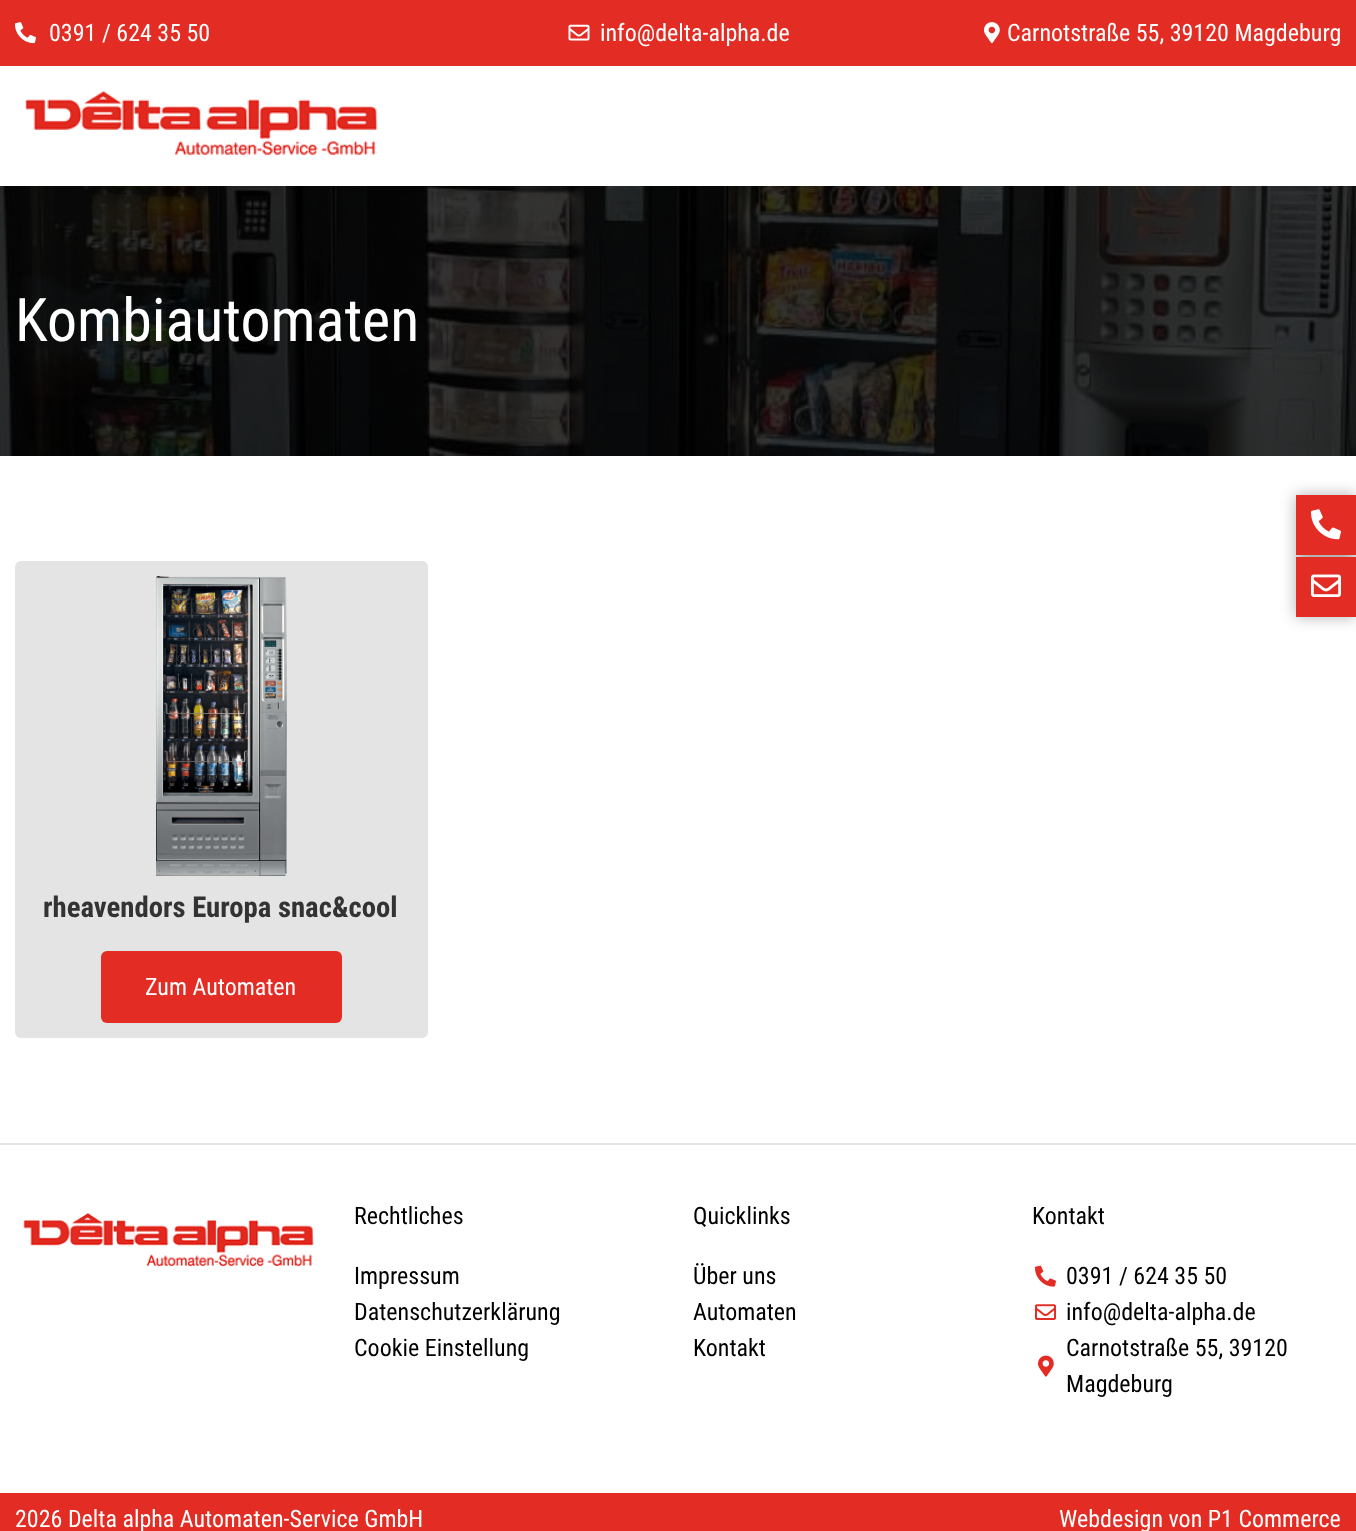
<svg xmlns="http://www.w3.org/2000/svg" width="1356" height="1531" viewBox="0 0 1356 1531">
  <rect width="100%" height="100%" fill="rgb(255,255,255)"/>
  <rect x="0" y="0" width="1356" height="66" fill="rgb(227,44,35)"/>
  <image x="15" y="22" width="21" height="22" href="pic1.png"/>
  <text x="49" y="41" font-family="Roboto Condensed" font-size="24" fill="rgb(255,255,255)">0391 / 624 35 50</text>
  <image x="568" y="24" width="22" height="17" href="pic2.png"/>
  <text x="600" y="41" font-family="Roboto Condensed" font-size="24" fill="rgb(255,255,255)">info@delta-alpha.de</text>
  <image x="984" y="22" width="16" height="22" href="pic3.png"/>
  <text x="1007" y="41" font-family="Roboto Condensed" font-size="24" fill="rgb(255,255,255)">Carnotstraße 55, 39120 Magdeburg</text>
  <image x="25" y="90" width="353" height="65" href="pic4.png"/>
  <image x="0" y="186" width="1356" height="270" href="pic5.png"/>
  <text x="15" y="341" font-family="Roboto Condensed" font-size="60" fill="rgb(255,255,255)">Kombiautomaten</text>
  <rect x="15" y="561" width="413" height="477" rx="6" fill="rgb(228,228,228)"/>
  <image x="156" y="576" width="131" height="300" href="pic6.png"/>
  <text x="43" y="917" font-family="Roboto Condensed" font-size="28.75" font-weight="bold" fill="rgb(51,51,51)">rheavendors Europa snac&amp;cool</text>
  <rect x="101" y="951" width="241" height="72" rx="6" fill="rgb(227,44,35)"/>
  <text x="145" y="995" font-family="Roboto Condensed" font-size="24" fill="rgb(255,255,255)">Zum Automaten</text>
  <rect x="0" y="1143" width="1356" height="2" fill="rgb(228,228,228)"/>
  <rect x="1296" y="495" width="60" height="122" fill="rgba(0,0,0,0.3)" filter="blur(7.5px)"/>
  <rect x="1296" y="495" width="60" height="60" fill="rgb(227,44,35)"/>
  <image x="1311" y="509" width="30" height="31" href="pic7.png"/>
  <rect x="1296" y="557" width="60" height="60" fill="rgb(227,44,35)"/>
  <image x="1311" y="574" width="30" height="23" href="pic8.png"/>
  <image x="23" y="1212" width="291" height="54" href="pic9.png"/>
  <g font-family="Roboto Condensed" font-size="24" fill="rgb(0,0,0)">
    <text x="354" y="1224">Rechtliches</text>
    <text>
      <tspan x="354" y="1284">Impressum</tspan>
      <tspan x="354" y="1320">Datenschutzerklärung</tspan>
      <tspan x="354" y="1356">Cookie Einstellung</tspan>
    </text>
    <text x="693" y="1224">Quicklinks</text>
    <text>
      <tspan x="693" y="1284">Über uns</tspan>
      <tspan x="693" y="1320">Automaten</tspan>
      <tspan x="693" y="1356">Kontakt</tspan>
    </text>
    <text x="1032" y="1224">Kontakt</text>
  </g>
  <image x="1035" y="1265" width="21" height="22" href="pic10.png"/>
  <text x="1066" y="1284" font-family="Roboto Condensed" font-size="24" fill="rgb(0,0,0)">0391 / 624 35 50</text>
  <image x="1035" y="1304" width="21" height="16" href="pic11.png"/>
  <text x="1066" y="1320" font-family="Roboto Condensed" font-size="24" fill="rgb(0,0,0)">info@delta-alpha.de</text>
  <image x="1038" y="1355" width="16" height="22" href="pic12.png"/>
  <g font-family="Roboto Condensed" font-size="24" fill="rgb(0,0,0)">
    <text>
      <tspan x="1066" y="1356">Carnotstraße 55, 39120</tspan>
      <tspan x="1066" y="1392">Magdeburg</tspan>
    </text>
  </g>
  <rect x="0" y="1493" width="1356" height="38" fill="rgb(227,44,35)"/>
  <g font-family="Roboto Condensed" font-size="24" fill="rgb(255,255,255)">
    <text x="15" y="1527">2026 Delta alpha Automaten-Service GmbH</text>
    <text x="1059" y="1527">Webdesign von P1 Commerce</text>
  </g>
</svg>
